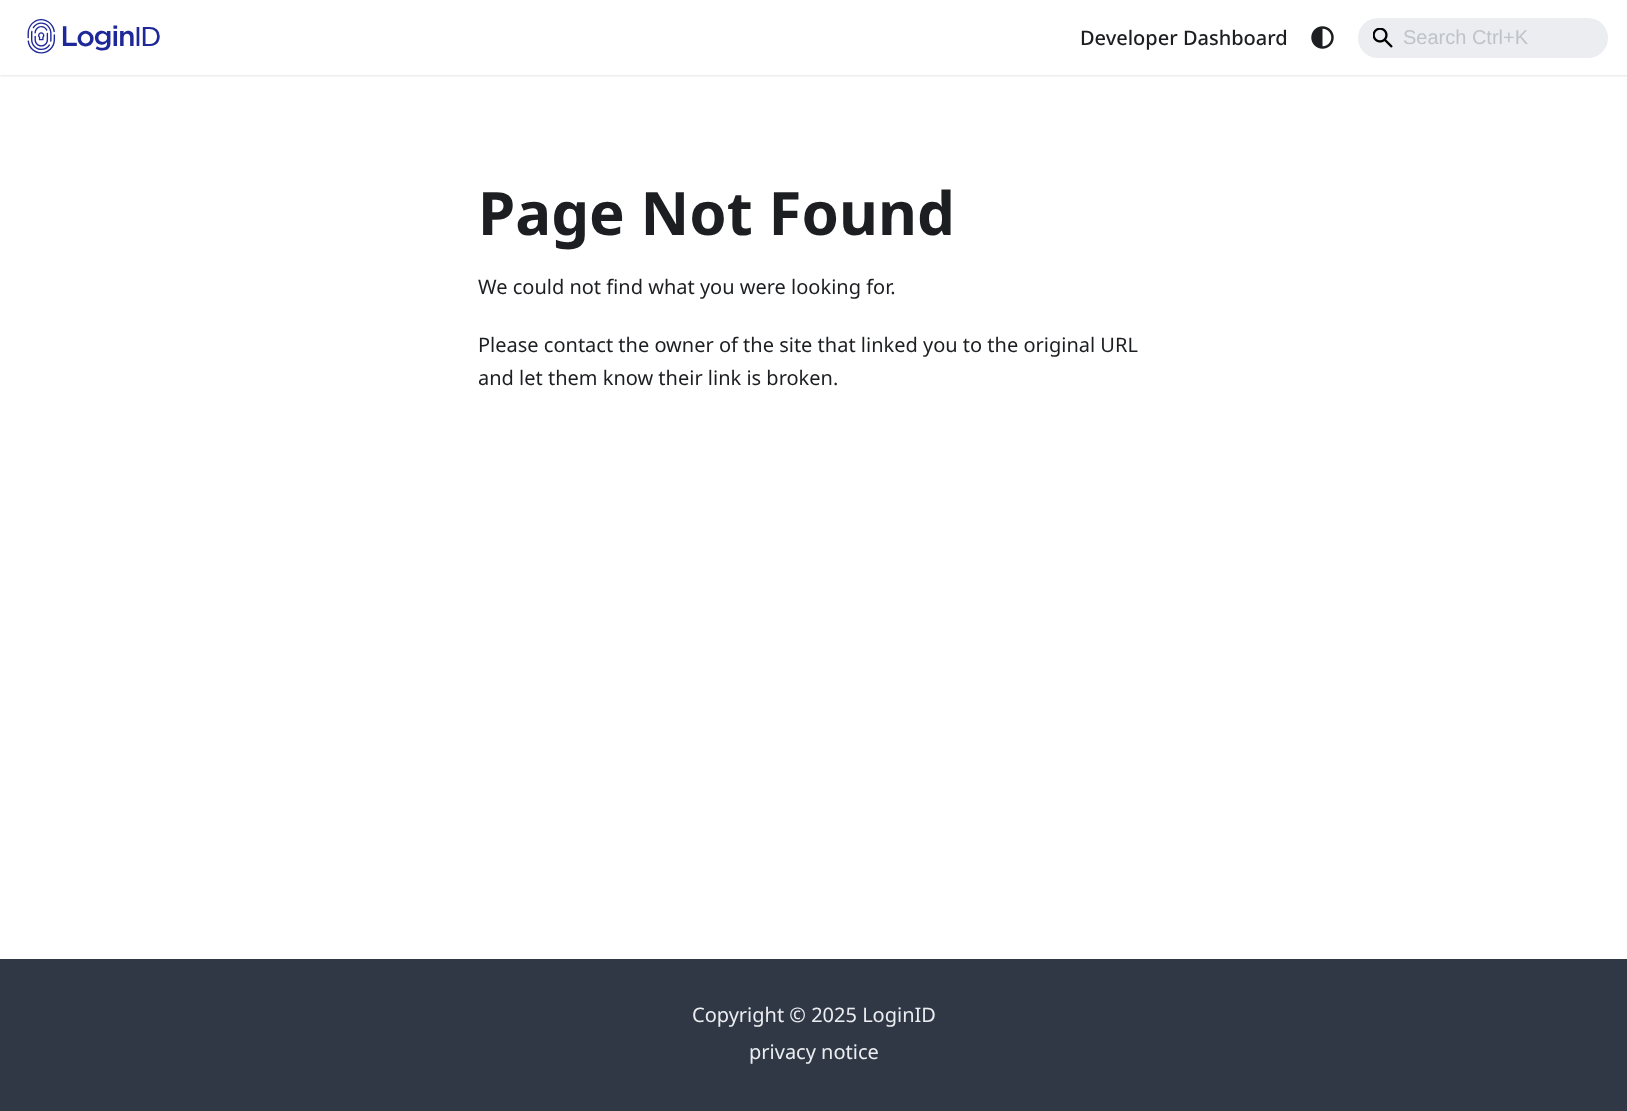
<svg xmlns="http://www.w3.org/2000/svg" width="1627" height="1111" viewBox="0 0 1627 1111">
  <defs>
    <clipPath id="clip1"><rect x="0" y="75" width="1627" height="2"/></clipPath>
  </defs>
  <rect width="100%" height="100%" fill="rgb(255,255,255)"/>
  <g clip-path="url(#clip1)">
    <rect x="0" y="1" width="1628" height="75" fill="rgba(0,0,0,0.1)" filter="blur(1px)"/>
  </g>
  <image x="27" y="19" width="133" height="35" href="pic1.png"/>
  <text x="1080" y="45" font-family="Noto Sans" font-size="20" font-weight="500" fill="rgb(28,30,33)">Developer Dashboard</text>
  <image x="1311" y="26" width="23" height="23" href="pic2.png"/>
  <rect x="1358" y="18" width="250" height="40" rx="20" fill="rgb(235,237,240)"/>
  <image x="1373" y="28" width="20" height="20" href="pic3.png"/>
  <text x="1403" y="44" font-family="Liberation Sans" font-size="20" fill="rgb(190,195,201)">Search Ctrl+K</text>
  <text x="478" y="235" font-family="Noto Sans" font-size="60" font-weight="bold" fill="rgb(28,30,33)">Page Not Found</text>
  <g font-family="Noto Sans" font-size="20" fill="rgb(28,30,33)">
    <text x="478" y="294">We could not find what you were looking for.</text>
    <text>
      <tspan x="478" y="352">Please contact the owner of the site that linked you to the original URL</tspan>
      <tspan x="478" y="385">and let them know their link is broken.</tspan>
    </text>
  </g>
  <rect x="0" y="959" width="1627" height="152" fill="rgb(48,56,70)"/>
  <g font-family="Noto Sans" font-size="20" fill="rgb(235,237,240)">
    <text x="692" y="1022">Copyright © 2025 LoginID</text>
    <text x="749" y="1059">privacy notice</text>
  </g>
</svg>
